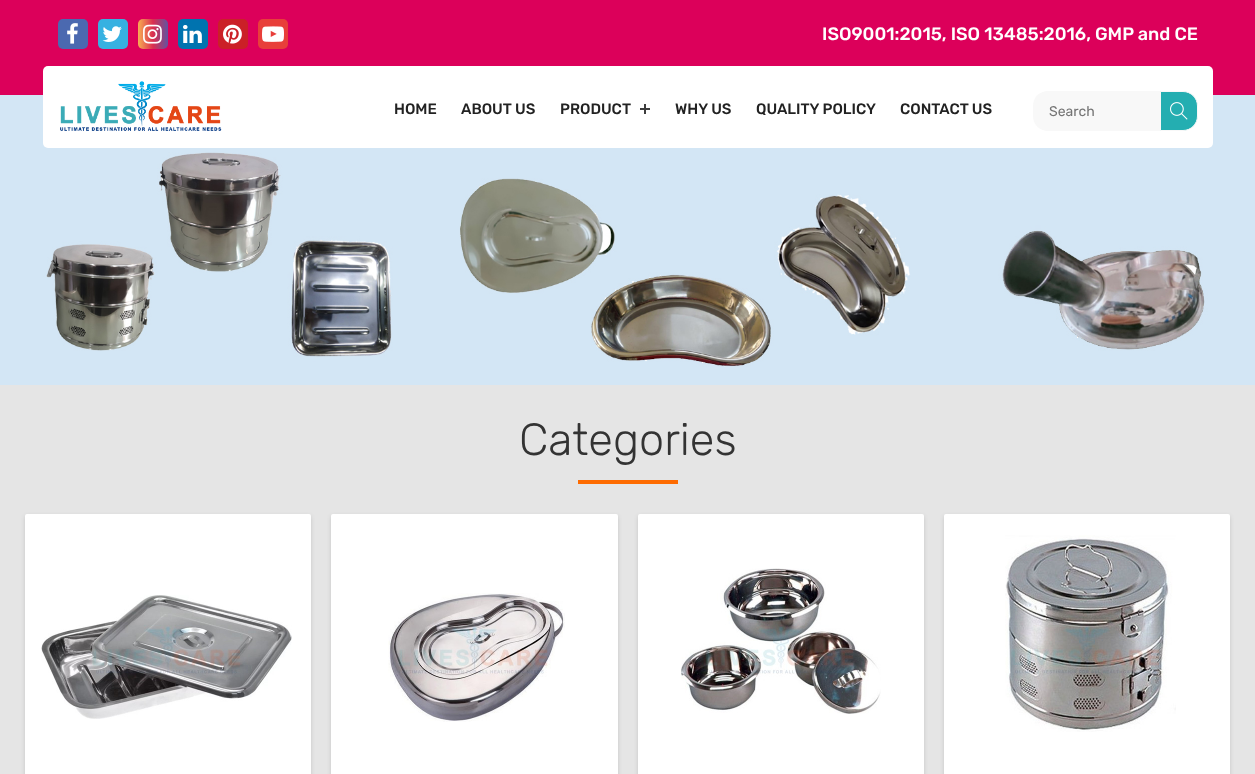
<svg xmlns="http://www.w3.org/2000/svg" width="1255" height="774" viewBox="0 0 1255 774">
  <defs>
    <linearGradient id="g1" gradientUnits="userSpaceOnUse" x1="138" y1="34" x2="168" y2="34"><stop offset="0" stop-color="rgb(248,174,82)"/><stop offset="0.5" stop-color="rgb(218,46,80)"/><stop offset="1" stop-color="rgb(98,83,160)"/></linearGradient>
  </defs>
  <rect width="100%" height="100%" fill="rgb(220,0,90)"/>
  <rect x="58" y="19" width="30" height="30" rx="5" fill="rgb(75,105,176)"/>
  <image x="67" y="23" width="11" height="21" href="pic1.png"/>
  <rect x="98" y="19" width="30" height="30" rx="5" fill="rgb(55,177,225)"/>
  <image x="102" y="26" width="20" height="16" href="pic2.png"/>
  <rect x="138" y="19" width="30" height="30" rx="5" fill="url(#g1)"/>
  <image x="143" y="24" width="19" height="20" href="pic3.png"/>
  <rect x="178" y="19" width="30" height="30" rx="5" fill="rgb(0,115,175)"/>
  <image x="183" y="25" width="19" height="18" href="pic4.png"/>
  <rect x="218" y="19" width="30" height="30" rx="5" fill="rgb(203,32,39)"/>
  <image x="223" y="24" width="19" height="20" href="pic5.png"/>
  <rect x="258" y="19" width="30" height="30" rx="5" fill="rgb(232,63,58)"/>
  <image x="262" y="26" width="22" height="16" href="pic6.png"/>
  <text x="822" y="40" font-family="Rubik" font-size="18" font-weight="500" fill="rgb(255,255,255)">ISO9001:2015, ISO 13485:2016, GMP and CE</text>
  <image x="0" y="95" width="1255" height="290" href="pic7.png"/>
  <rect x="43" y="66" width="1170" height="82" rx="5" fill="rgb(255,255,255)"/>
  <image x="60" y="81" width="162" height="50" href="pic8.png"/>
  <g font-family="Rubik" font-size="15" font-weight="500" fill="rgb(34,34,34)">
    <text x="394" y="114">HOME</text>
    <text x="461" y="114">ABOUT US</text>
    <text x="560" y="114">PRODUCT</text>
  </g>
  <rect x="644" y="104" width="2" height="10" fill="rgb(61,61,61)"/>
  <rect x="640" y="108" width="10" height="2" fill="rgb(61,61,61)"/>
  <g font-family="Rubik" font-size="15" font-weight="500" fill="rgb(34,34,34)">
    <text x="675" y="114">WHY US</text>
    <text x="756" y="114">QUALITY POLICY</text>
    <text x="900" y="114">CONTACT US</text>
  </g>
  <path d="M1048 91H1160V131H1048C1039.5 131 1033 124.5 1033 116V106C1033 97.5 1039.5 91 1048 91Z" fill="rgb(248,248,248)"/>
  <text x="1049" y="116" font-family="Rubik" font-size="14" fill="rgb(117,117,117)">Search</text>
  <path d="M1160.5 91.5H1183C1191 91.5 1197.5 98 1197.5 106V116C1197.5 124 1191 130.5 1183 130.5H1160.5Z" fill="rgb(36,174,177)" stroke="rgb(248,248,248)"/>
  <image x="1170" y="102" width="18" height="18" href="pic9.png"/>
  <rect x="0" y="385" width="1255" height="389" fill="rgb(229,229,229)"/>
  <text x="519" y="455" font-family="Rubik" font-size="45" font-weight="300" fill="rgb(51,51,51)">Categories</text>
  <rect x="578" y="480" width="100" height="4" fill="rgb(254,107,0)"/>
  <rect x="25" y="516" width="286" height="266" rx="2" fill="rgba(37,39,42,0.15)" filter="blur(2px)"/>
  <rect x="25" y="514" width="286" height="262" rx="2" fill="rgb(255,255,255)"/>
  <image x="41" y="595" width="251" height="124" href="pic10.png"/>
  <rect x="331" y="516" width="287" height="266" rx="2" fill="rgba(37,39,42,0.15)" filter="blur(2px)"/>
  <rect x="331" y="514" width="287" height="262" rx="2" fill="rgb(255,255,255)"/>
  <image x="388" y="593" width="177" height="129" href="pic11.png"/>
  <rect x="638" y="516" width="286" height="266" rx="2" fill="rgba(37,39,42,0.15)" filter="blur(2px)"/>
  <rect x="638" y="514" width="286" height="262" rx="2" fill="rgb(255,255,255)"/>
  <image x="681" y="568" width="200" height="146" href="pic12.png"/>
  <rect x="944" y="516" width="286" height="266" rx="2" fill="rgba(37,39,42,0.15)" filter="blur(2px)"/>
  <rect x="944" y="514" width="286" height="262" rx="2" fill="rgb(255,255,255)"/>
  <image x="1005" y="535" width="171" height="197" href="pic13.png"/>
</svg>
